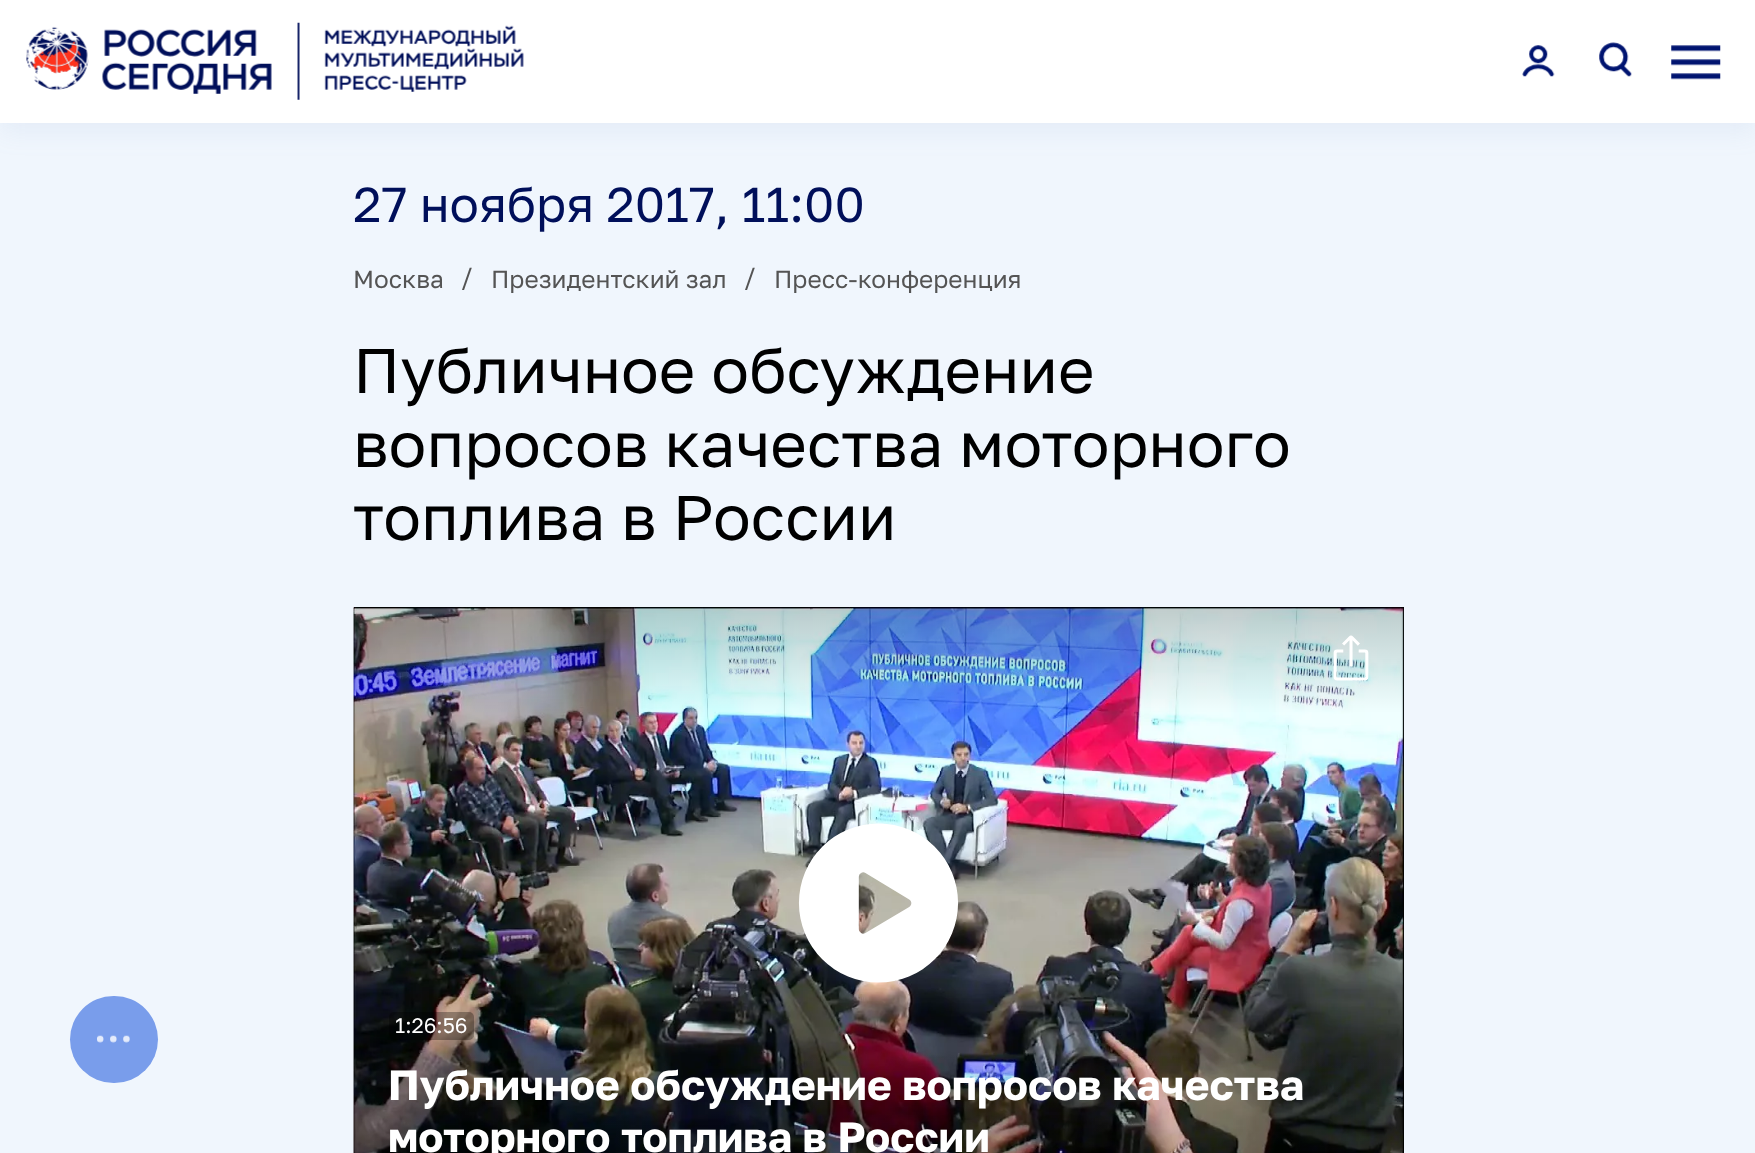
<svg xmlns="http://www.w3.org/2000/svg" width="1755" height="1153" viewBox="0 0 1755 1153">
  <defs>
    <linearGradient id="g1" gradientUnits="userSpaceOnUse" x1="879" y1="607" x2="879" y2="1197"><stop offset="0" stop-color="rgb(0,0,0)" stop-opacity="0.2"/><stop offset="0.18" stop-color="rgb(0,0,0)" stop-opacity="0"/><stop offset="0.75" stop-color="rgb(0,0,0)" stop-opacity="0"/><stop offset="1" stop-color="rgb(0,0,0)" stop-opacity="0.2"/></linearGradient>
  </defs>
  <rect width="100%" height="100%" fill="rgb(240,246,253)"/>
  <rect x="0" y="9" width="1755" height="122" fill="rgba(114,145,192,0.1)" filter="blur(13px)"/>
  <rect x="0" y="0" width="1755" height="123" fill="rgb(255,255,255)"/>
  <image x="26" y="22" width="498" height="78" href="pic1.png"/>
  <image x="1522" y="45" width="33" height="32" href="pic2.png"/>
  <image x="1599" y="42" width="33" height="35" href="pic3.png"/>
  <image x="1671" y="45" width="50" height="35" href="pic4.png"/>
  <rect x="70" y="996" width="88" height="87" rx="43.5" fill="rgb(121,157,235)"/>
  <image x="97" y="1035" width="33" height="8" href="pic5.png"/>
  <text x="353" y="222" font-family="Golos" font-size="49" fill="rgb(0,15,90)">27 ноября 2017, 11:00</text>
  <g font-family="Golos" font-size="24.5" fill="rgb(84,84,84)">
    <text x="353" y="288">Москва</text>
    <text x="461" y="285">/</text>
    <text x="491" y="288">Президентский зал</text>
    <text x="744" y="285">/</text>
    <text x="774" y="288">Пресс-конференция</text>
  </g>
  <g font-family="Golos" font-size="63" fill="rgb(0,0,0)">
    <text>
      <tspan x="353" y="393">Публичное обсуждение</tspan>
      <tspan x="353" y="467">вопросов качества моторного</tspan>
      <tspan x="353" y="540">топлива в России</tspan>
    </text>
  </g>
  <image x="353" y="607" width="1" height="546" href="pic6.png"/>
  <rect x="354" y="607" width="1050" height="546" fill="rgb(0,0,0)"/>
  <image x="353" y="607" width="1051" height="546" href="pic7.png"/>
  <rect x="354" y="607" width="1050" height="546" fill="url(#g1)"/>
  <image x="798" y="823" width="161" height="160" href="pic8.png"/>
  <image x="1333" y="635" width="36" height="46" href="pic9.png"/>
  <rect x="389" y="1012" width="85" height="28" rx="5" fill="rgba(0,0,0,0.3)"/>
  <text x="395" y="1033" font-family="Golos" font-size="21" fill="rgb(255,255,255)">1:26:56</text>
  <g font-family="Golos" font-size="42" font-weight="bold" fill="rgb(255,255,255)">
    <text>
      <tspan x="388" y="1100">Публичное обсуждение вопросов качества</tspan>
      <tspan x="388" y="1152">моторного топлива в России</tspan>
    </text>
  </g>
</svg>
